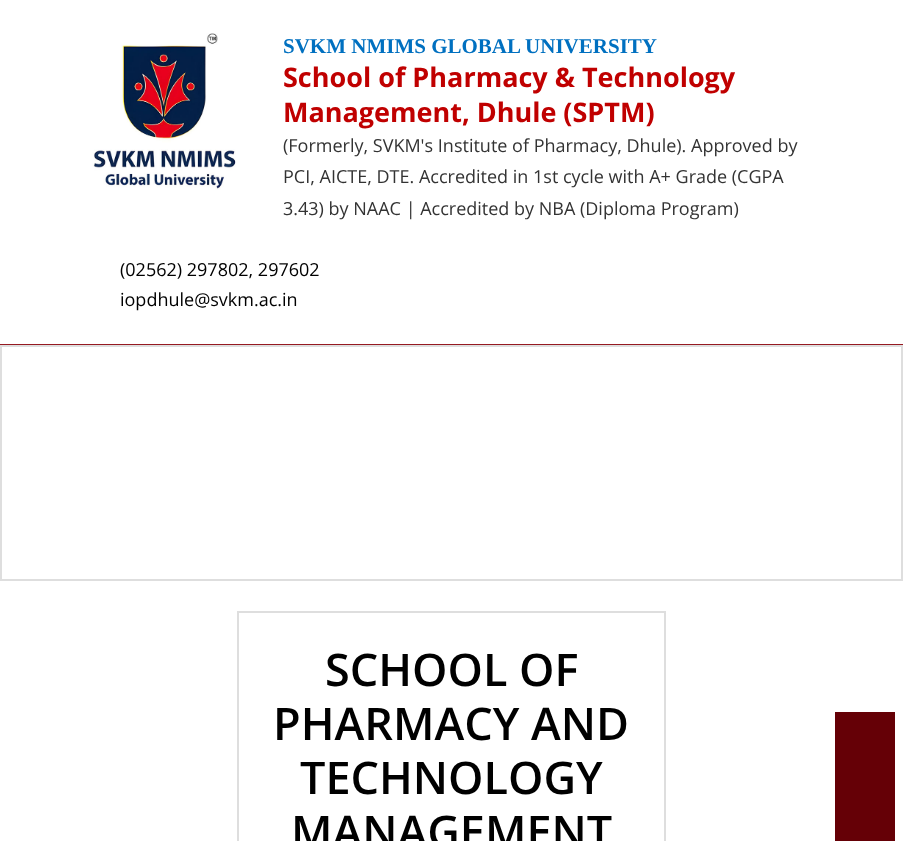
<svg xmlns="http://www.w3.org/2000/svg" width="903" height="841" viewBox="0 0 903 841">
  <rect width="100%" height="100%" fill="rgb(255,255,255)"/>
  <image x="92" y="33" width="144" height="157" href="pic1.png"/>
  <text x="283" y="53" font-family="Liberation Serif" font-size="21" font-weight="bold" fill="rgb(0,112,192)">SVKM NMIMS GLOBAL UNIVERSITY</text>
  <g font-family="Open Sans" font-size="27" font-weight="bold" fill="rgb(192,0,0)">
    <text>
      <tspan x="283" y="87">School of Pharmacy &amp; Technology</tspan>
      <tspan x="283" y="122">Management, Dhule (SPTM)</tspan>
    </text>
  </g>
  <g font-family="Open Sans" font-size="18" fill="rgb(51,51,51)">
    <text>
      <tspan x="283" y="152">(Formerly, SVKM's Institute of Pharmacy, Dhule). Approved by</tspan>
      <tspan x="283" y="183">PCI, AICTE, DTE. Accredited in 1st cycle with A+ Grade (CGPA</tspan>
      <tspan x="283" y="215">3.43) by NAAC | Accredited by NBA (Diploma Program)</tspan>
    </text>
  </g>
  <g font-family="Open Sans" font-size="18" fill="rgb(0,0,0)">
    <text>
      <tspan x="120" y="276">(02562) 297802, 297602</tspan>
      <tspan x="120" y="306">iopdhule@svkm.ac.in</tspan>
    </text>
  </g>
  <rect x="0" y="344" width="903" height="1" fill="rgb(150,26,34)"/>
  <rect x="1" y="346" width="901" height="234" fill="none" stroke="rgb(222,222,222)" stroke-width="2"/>
  <rect x="238" y="612" width="427" height="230" fill="none" stroke="rgb(222,222,222)" stroke-width="2"/>
  <g font-family="Open Sans" font-size="45" font-weight="600" fill="rgb(0,0,0)">
    <text x="325" y="686">SCHOOL OF</text>
    <text x="273" y="740">PHARMACY AND</text>
    <text x="300" y="794">TECHNOLOGY</text>
    <text x="291" y="848">MANAGEMENT</text>
  </g>
  <rect x="835" y="712" width="60" height="129" fill="rgb(101,0,6)"/>
</svg>
